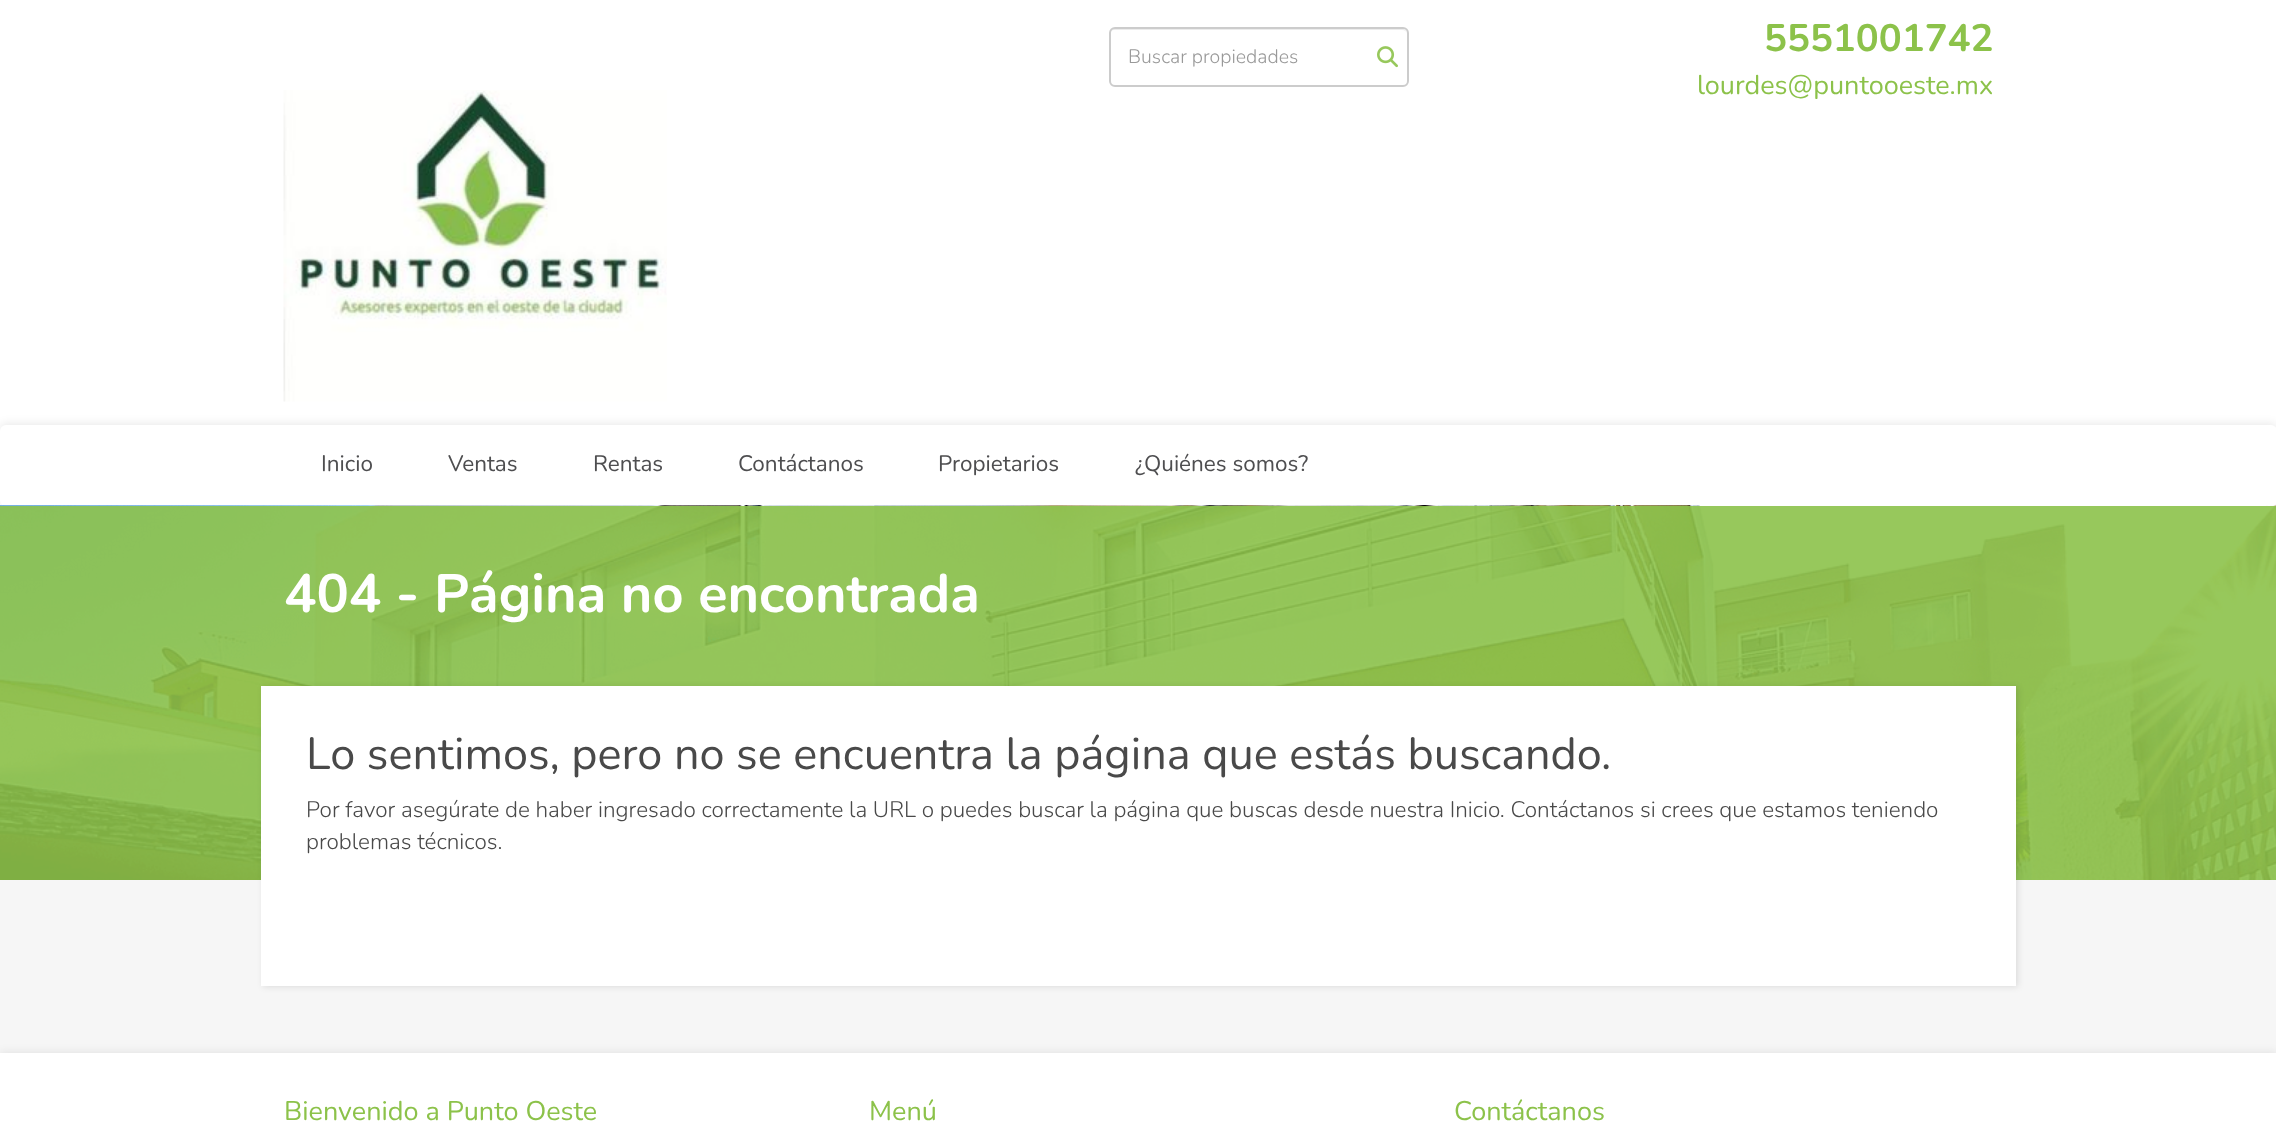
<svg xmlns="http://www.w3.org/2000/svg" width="2276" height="1124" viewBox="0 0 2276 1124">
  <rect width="100%" height="100%" fill="rgb(246,246,246)"/>
  <rect x="0" y="0" width="2276" height="505" fill="rgb(255,255,255)"/>
  <path d="M1114 30H1402C1405 30 1407 32 1407 34C1407 31 1405 29 1402 29H1115C1112 29 1110 31 1110 34C1110 32 1112 30 1114 30Z" fill="rgb(236,236,236)"/>
  <rect x="1110" y="28" width="298" height="58" rx="5" fill="none" stroke="rgb(204,204,204)" stroke-width="2"/>
  <text x="1128" y="63" font-family="Nunito" font-size="19.5" font-weight="300" fill="rgb(153,153,153)">Buscar propiedades</text>
  <image x="1377" y="46" width="21" height="22" href="pic1.png"/>
  <text x="1764" y="51" font-family="Nunito" font-size="38.25" font-weight="bold" fill="rgb(140,194,74)">5551001742</text>
  <text x="1697" y="94" font-family="Nunito" font-size="27" fill="rgb(140,194,74)">lourdes@puntooeste.mx</text>
  <image x="283" y="90" width="384" height="312" href="pic2.png"/>
  <rect x="0" y="423" width="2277" height="81" rx="6" fill="rgba(0,0,0,0.08)" filter="blur(4.5px)"/>
  <rect x="0" y="425" width="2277" height="81" rx="6" fill="rgb(255,255,255)"/>
  <g font-family="Nunito" font-size="22.5" fill="rgb(78,78,80)">
    <text x="321" y="471">Inicio</text>
    <text x="448" y="471">Ventas</text>
    <text x="593" y="471">Rentas</text>
    <text x="738" y="471">Contáctanos</text>
    <text x="938" y="471">Propietarios</text>
    <text x="1135" y="471">¿Quiénes somos?</text>
  </g>
  <image x="0" y="505" width="2276" height="375" href="pic3.png"/>
  <text x="284" y="612" font-family="Nunito" font-size="54" font-weight="bold" fill="rgb(255,255,255)">404 - Página no encontrada</text>
  <rect x="263" y="687" width="1755" height="300" fill="rgba(0,0,0,0.1)" filter="blur(3px)"/>
  <rect x="261" y="686" width="1755" height="300" fill="rgb(255,255,255)"/>
  <text x="306" y="769" font-family="Nunito" font-size="45" fill="rgb(73,73,73)">Lo sentimos, pero no se encuentra la página que estás buscando.</text>
  <g font-family="Nunito" font-size="22.5" font-weight="300" fill="rgb(73,73,73)">
    <text>
      <tspan x="306" y="817">Por favor asegúrate de haber ingresado correctamente la URL o puedes buscar la página que buscas desde nuestra Inicio. Contáctanos si crees que estamos teniendo</tspan>
      <tspan x="306" y="849">problemas técnicos.</tspan>
    </text>
  </g>
  <rect x="0" y="1052" width="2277" height="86" fill="rgba(0,0,0,0.08)" filter="blur(4.5px)"/>
  <rect x="0" y="1053" width="2276" height="71" fill="rgb(255,255,255)"/>
  <g font-family="Nunito" font-size="27" fill="rgb(140,194,74)">
    <text x="284" y="1120">Bienvenido a Punto Oeste</text>
    <text x="869" y="1120">Menú</text>
    <text x="1454" y="1120">Contáctanos</text>
  </g>
</svg>
